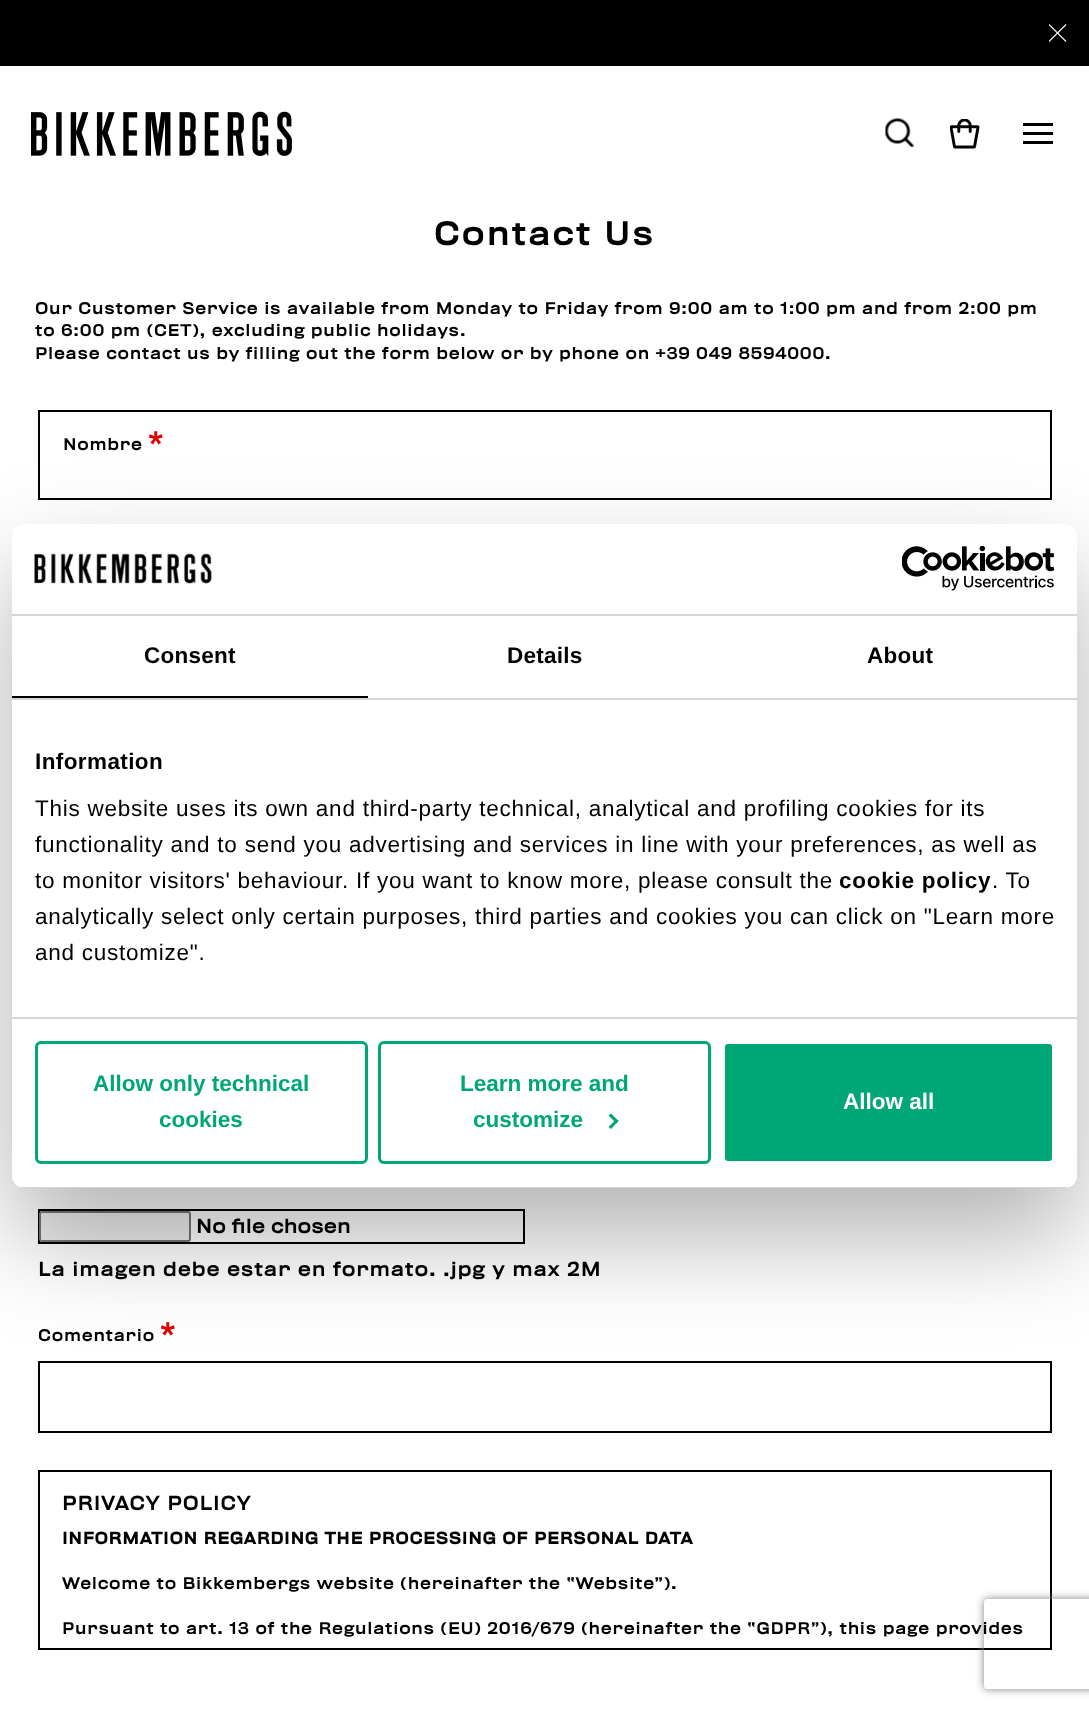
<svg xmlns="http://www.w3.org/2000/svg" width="1089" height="1710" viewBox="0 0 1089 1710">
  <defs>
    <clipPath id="clip1"><path d="M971 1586H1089V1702H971ZM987 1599H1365C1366.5 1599 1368 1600.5 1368 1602V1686C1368 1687.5 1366.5 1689 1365 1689H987C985.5 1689 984 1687.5 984 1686V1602C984 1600.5 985.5 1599 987 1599Z" clip-rule="evenodd"/></clipPath>
    <clipPath id="clip2"><rect x="12" y="524" width="1065" height="664" rx="12"/></clipPath>
  </defs>
  <rect width="100%" height="100%" fill="rgb(255,255,255)"/>
  <rect x="0" y="0" width="1089" height="66" fill="rgb(0,0,0)"/>
  <image x="1049" y="24" width="18" height="18" href="pic1.png"/>
  <image x="31" y="111" width="261" height="45" href="pic2.png"/>
  <image x="885" y="118" width="29" height="30" href="pic3.png"/>
  <image x="950" y="119" width="30" height="30" href="pic4.png"/>
  <rect x="1023" y="123" width="30" height="3" fill="rgb(0,0,0)"/>
  <rect x="1023" y="132" width="30" height="3" fill="rgb(0,0,0)"/>
  <rect x="1023" y="141" width="30" height="3" fill="rgb(0,0,0)"/>
  <text x="434" y="245" font-family="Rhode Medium" font-size="30" font-weight="500" letter-spacing="2" fill="rgb(0,0,0)">Contact Us</text>
  <g font-family="Rhode Medium" font-size="15" font-weight="500" letter-spacing="0.75" fill="rgb(0,0,0)">
    <text>
      <tspan x="35" y="314">Our Customer Service is available from Monday to Friday from 9:00 am to 1:00 pm and from 2:00 pm</tspan>
      <tspan x="35" y="336">to 6:00 pm (CET), excluding public holidays.</tspan>
      <tspan x="35" y="359">Please contact us by filling out the form below or by phone on +39 049 8594000.</tspan>
    </text>
  </g>
  <rect x="39" y="411" width="1012" height="88" fill="none" stroke="rgb(0,0,0)" stroke-width="2"/>
  <text x="63" y="450" font-family="Rhode Medium" font-size="15" font-weight="500" letter-spacing="0.75" fill="rgb(0,0,0)">Nombre</text>
  <text x="148" y="450" font-family="Rhode Medium" font-size="24" font-weight="500" letter-spacing="0.75" fill="rgb(225,0,0)">*</text>
  <rect x="39" y="1210" width="485" height="33" fill="none" stroke="rgb(0,0,0)" stroke-width="2"/>
  <rect x="40" y="1212" width="150" height="29" rx="2" fill="rgb(239,239,239)" stroke="rgb(118,118,118)" stroke-width="2"/>
  <text x="196" y="1233" font-family="Rhode Medium" font-size="18" font-weight="500" fill="rgb(0,0,0)">No file chosen</text>
  <text x="38" y="1276" font-family="Rhode Medium" font-size="18" font-weight="500" letter-spacing="0.75" fill="rgb(0,0,0)">La imagen debe estar en formato. .jpg y max 2M</text>
  <text x="38" y="1341" font-family="Rhode Medium" font-size="15" font-weight="500" letter-spacing="0.75" fill="rgb(0,0,0)">Comentario</text>
  <text x="160" y="1341" font-family="Rhode Medium" font-size="24" font-weight="500" letter-spacing="0.75" fill="rgb(225,0,0)">*</text>
  <rect x="39" y="1362" width="1012" height="70" fill="none" stroke="rgb(0,0,0)" stroke-width="2"/>
  <rect x="39" y="1471" width="1012" height="178" fill="none" stroke="rgb(0,0,0)" stroke-width="2"/>
  <text x="62" y="1510" font-family="Rhode Medium" font-size="18" font-weight="500" letter-spacing="0.75" fill="rgb(0,0,0)">PRIVACY POLICY</text>
  <text x="62" y="1544" font-family="Rhode Medium" font-size="15" font-weight="bold" letter-spacing="0.75" fill="rgb(0,0,0)">INFORMATION REGARDING THE PROCESSING OF PERSONAL DATA</text>
  <g font-family="Rhode Medium" font-size="15" font-weight="500" letter-spacing="0.75" fill="rgb(0,0,0)">
    <text x="62" y="1589">Welcome to Bikkembergs website (hereinafter the “Website”).</text>
    <text x="62" y="1634">Pursuant to art. 13 of the Regulations (EU) 2016/679 (hereinafter the “GDPR”), this page provides</text>
  </g>
  <g clip-path="url(#clip1)">
    <rect x="984" y="1599" width="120" height="90" rx="3" fill="rgb(128,128,128)" filter="blur(4px)"/>
  </g>
  <rect x="12" y="572" width="1065" height="664" rx="12" fill="rgba(0,0,0,0.3)" filter="blur(51px)"/>
  <rect x="12" y="524" width="1065" height="664" rx="12" fill="rgb(255,255,255)"/>
  <rect x="12" y="614" width="1065" height="2" fill="rgb(214,214,214)"/>
  <image x="34" y="553" width="178" height="31" href="pic5.png"/>
  <image x="902" y="546" width="153" height="45" href="pic6.png"/>
  <rect x="12" y="698" width="1065" height="2" fill="rgb(214,214,214)"/>
  <rect x="12" y="696" width="356" height="2" fill="rgb(0,0,0)"/>
  <g font-family="Liberation Sans" font-size="22.5" font-weight="bold" letter-spacing="0.25" fill="rgb(0,0,0)">
    <text x="144" y="663">Consent</text>
    <text x="507" y="663">Details</text>
    <text x="867" y="663">About</text>
  </g>
  <rect x="12" y="1017" width="1065" height="2" fill="rgb(214,214,214)"/>
  <text x="35" y="769" font-family="Liberation Sans" font-size="22.5" font-weight="bold" letter-spacing="0.4" fill="rgb(0,0,0)">Information</text>
  <g font-family="Liberation Sans" font-size="22.5" letter-spacing="0.75" fill="rgb(0,0,0)">
    <text>
      <tspan x="35" y="816">This website uses its own and third-party technical, analytical and profiling cookies for its</tspan>
      <tspan x="35" y="852">functionality and to send you advertising and services in line with your preferences, as well as</tspan>
      <tspan x="35" y="888">to monitor visitors' behaviour. If you want to know more, please consult the</tspan>
    </text>
  </g>
  <text x="839" y="888" font-family="Liberation Sans" font-size="22.5" font-weight="bold" letter-spacing="0.75" fill="rgb(0,0,0)">cookie policy</text>
  <g font-family="Liberation Sans" font-size="22.5" letter-spacing="0.75" fill="rgb(0,0,0)">
    <text x="992" y="888">. To</text>
    <text>
      <tspan x="35" y="924">analytically select only certain purposes, third parties and cookies you can click on "Learn more</tspan>
      <tspan x="35" y="960">and customize".</tspan>
    </text>
  </g>
  <g clip-path="url(#clip2)">
    <rect x="12" y="1187" width="1065" height="1" fill="rgb(214,214,214)"/>
  </g>
  <rect x="36.5" y="1042.5" width="330" height="120" rx="4.5" fill="none" stroke="rgb(0,167,118)" stroke-width="3"/>
  <g font-family="Liberation Sans" font-size="22.5" font-weight="bold" fill="rgb(0,167,118)">
    <text x="93" y="1091">Allow only technical</text>
    <text x="159" y="1127">cookies</text>
  </g>
  <rect x="379.5" y="1042.5" width="330" height="120" rx="4.5" fill="none" stroke="rgb(0,167,118)" stroke-width="3"/>
  <g font-family="Liberation Sans" font-size="22.5" font-weight="bold" fill="rgb(0,167,118)">
    <text x="460" y="1091">Learn more and</text>
    <text x="473" y="1127">customize</text>
  </g>
  <path d="M611 1113.5L618.5 1121L616.5 1123.5L608.5 1115.5Z" fill="rgb(0,167,118)"/>
  <path d="M616.5 1119L618.5 1121L611 1129L608.5 1127Z" fill="rgb(0,167,118)"/>
  <rect x="723.5" y="1042.5" width="330" height="120" rx="4.5" fill="rgb(0,167,118)" stroke="rgb(255,255,255)" stroke-width="3"/>
  <text x="843" y="1109" font-family="Liberation Sans" font-size="22.5" font-weight="bold" fill="rgb(255,255,255)">Allow all</text>
</svg>
